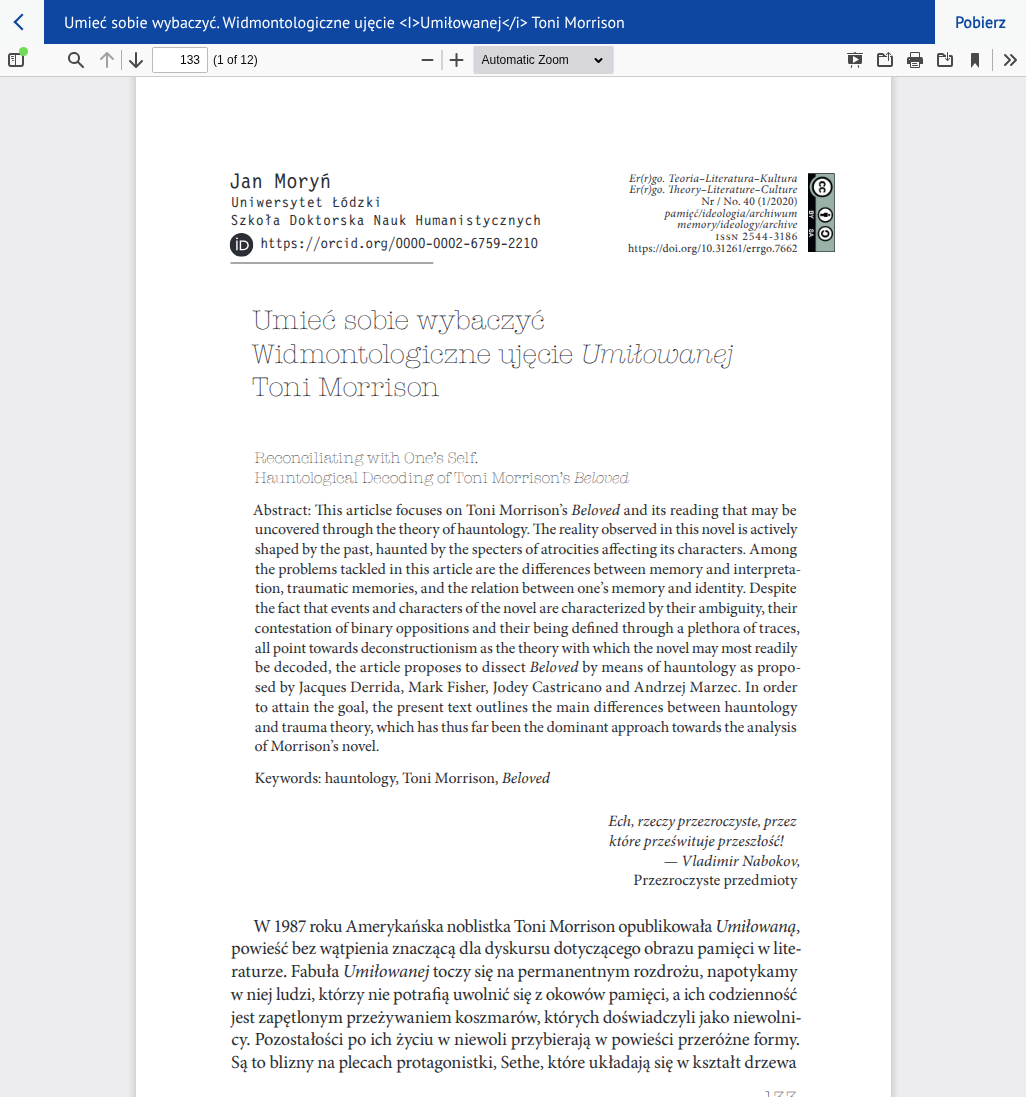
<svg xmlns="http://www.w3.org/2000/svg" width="1026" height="1097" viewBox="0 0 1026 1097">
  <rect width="100%" height="100%" fill="rgb(247,248,248)"/>
  <path d="M13.5 22L22 13.5L23.5 15L15 23.5Z" fill="rgb(13,71,161)"/>
  <path d="M13.5 22L15 20.5L23.5 29L22 30.5Z" fill="rgb(13,71,161)"/>
  <rect x="44" y="0" width="891" height="44" fill="rgb(13,71,161)"/>
  <text x="64" y="28" font-family="PT Sans" font-size="16" fill="rgb(255,255,255)">Umieć sobie wybaczyć. Widmontologiczne ujęcie &lt;I&gt;Umiłowanej&lt;/i&gt; Toni Morrison</text>
  <text x="955" y="28" font-family="PT Sans" font-size="16" font-weight="bold" fill="rgb(13,71,161)">Pobierz</text>
  <image x="0" y="46" width="1026" height="1051" href="pic1.png"/>
</svg>
